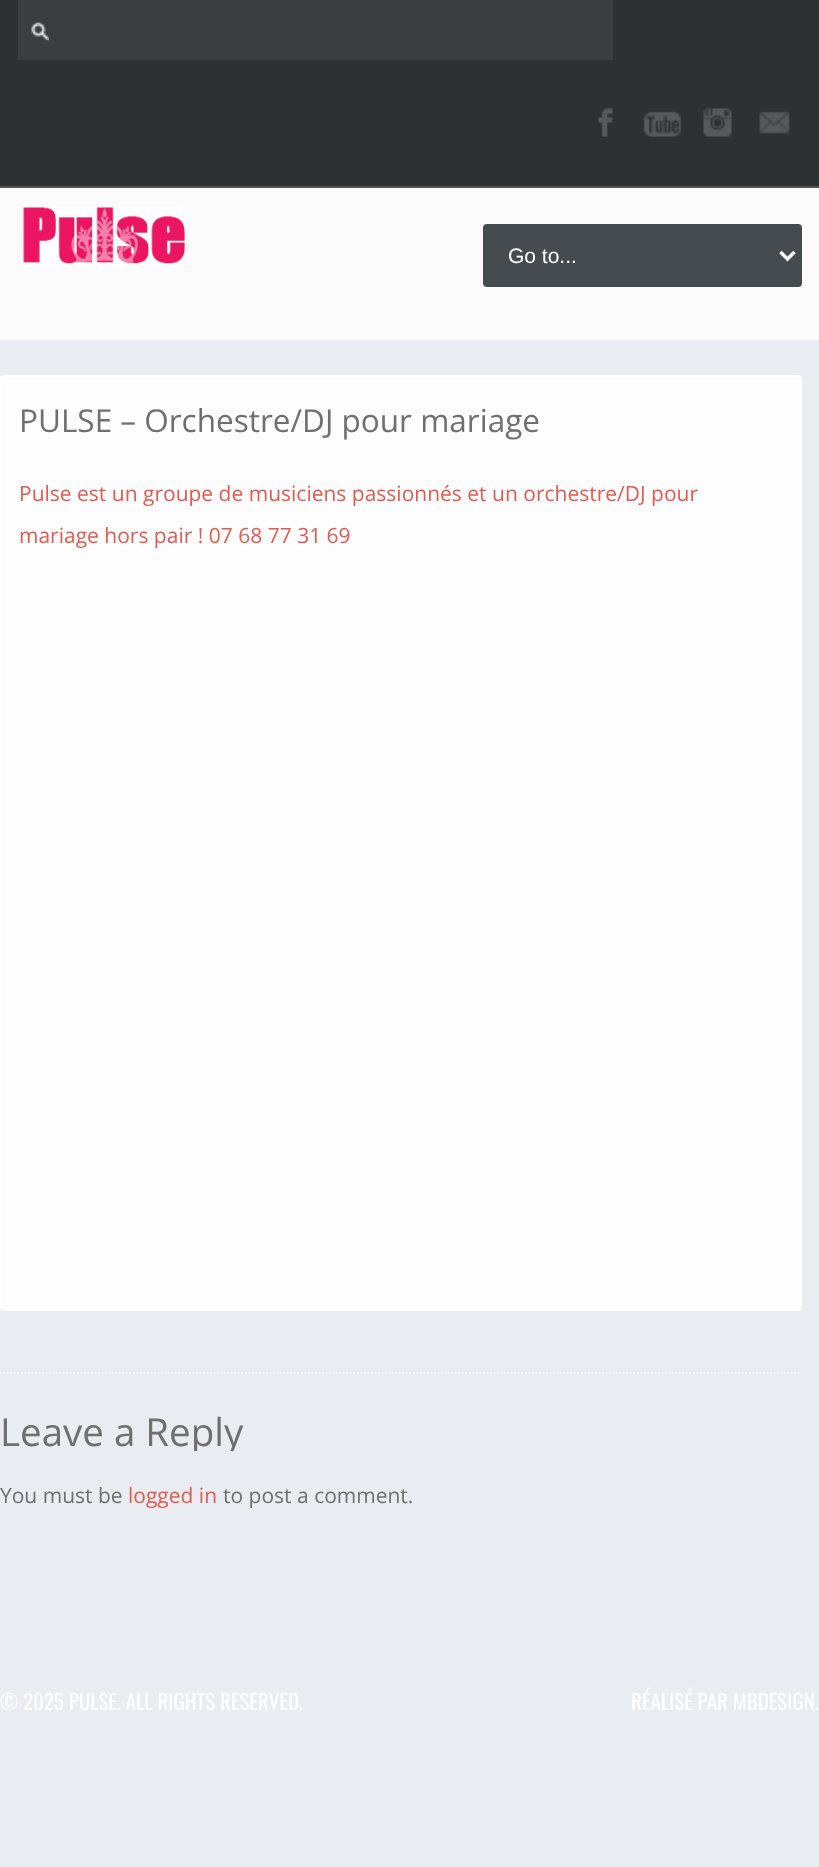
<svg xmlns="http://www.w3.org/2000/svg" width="819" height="1867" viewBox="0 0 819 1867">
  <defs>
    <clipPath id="clip1"><rect x="0" y="1409" width="802" height="42"/></clipPath>
  </defs>
  <rect width="100%" height="100%" fill="rgb(233,236,241)"/>
  <rect x="0" y="0" width="819" height="186" fill="rgb(47,48,50)"/>
  <rect x="18" y="0" width="595" height="60" fill="rgb(60,61,65)"/>
  <image x="31" y="22" width="18" height="19" href="pic1.png"/>
  <image x="598" y="108" width="15" height="29" href="pic2.png"/>
  <image x="643" y="111" width="39" height="26" href="pic3.png"/>
  <image x="703" y="108" width="29" height="29" href="pic4.png"/>
  <image x="759" y="111" width="31" height="23" href="pic5.png"/>
  <rect x="0" y="188" width="819" height="152" fill="rgb(251,251,251)"/>
  <rect x="0" y="186" width="819" height="2" fill="rgb(84,83,83)"/>
  <image x="23" y="207" width="162" height="60" href="pic6.png"/>
  <rect x="483" y="224" width="319" height="63" rx="4" fill="rgb(69,75,78)"/>
  <path d="M780.5 252L787.5 259L794.5 252" fill="none" stroke="rgb(255,255,255)" stroke-width="3.5"/>
  <text x="508" y="263" font-family="Liberation Sans" font-size="21" fill="rgb(255,255,255)">Go to...</text>
  <rect x="1" y="376" width="800" height="934" rx="3" fill="rgb(253,253,254)" stroke="rgb(255,255,255)" stroke-width="2"/>
  <text x="19" y="432" font-family="Open Sans" font-size="31.5" fill="rgb(111,111,111)">PULSE – Orchestre/DJ pour mariage</text>
  <g font-family="Open Sans" font-size="21" fill="rgb(225,91,81)">
    <text x="19" y="501">Pulse est un groupe de musiciens passionnés et un orchestre/DJ pour</text>
    <text x="19" y="543">mariage hors pair ! 07 68 77 31 69</text>
  </g>
  <path d="M0 1373H801.5" fill="none" stroke="rgb(247,247,247)" stroke-width="1.8" stroke-dasharray="1.75 1.75"/>
  <g clip-path="url(#clip1)">
    <text x="0" y="1446" font-family="Open Sans" font-size="38.5" fill="rgb(111,111,111)">Leave a Reply</text>
  </g>
  <text x="0" y="1503" font-family="Open Sans" font-size="21" fill="rgb(111,111,111)">You must be</text>
  <text x="128" y="1503" font-family="Open Sans" font-size="21" fill="rgb(225,91,81)">logged in</text>
  <text x="223" y="1503" font-family="Open Sans" font-size="21" fill="rgb(111,111,111)">to post a comment.</text>
  <g font-family="Oswald" font-size="21" fill="rgb(255,255,255)">
    <text x="0" y="1710">© 2025 PULSE. ALL RIGHTS RESERVED.</text>
    <text x="631" y="1710">RÉALISÉ PAR MBDESIGN.</text>
  </g>
</svg>
